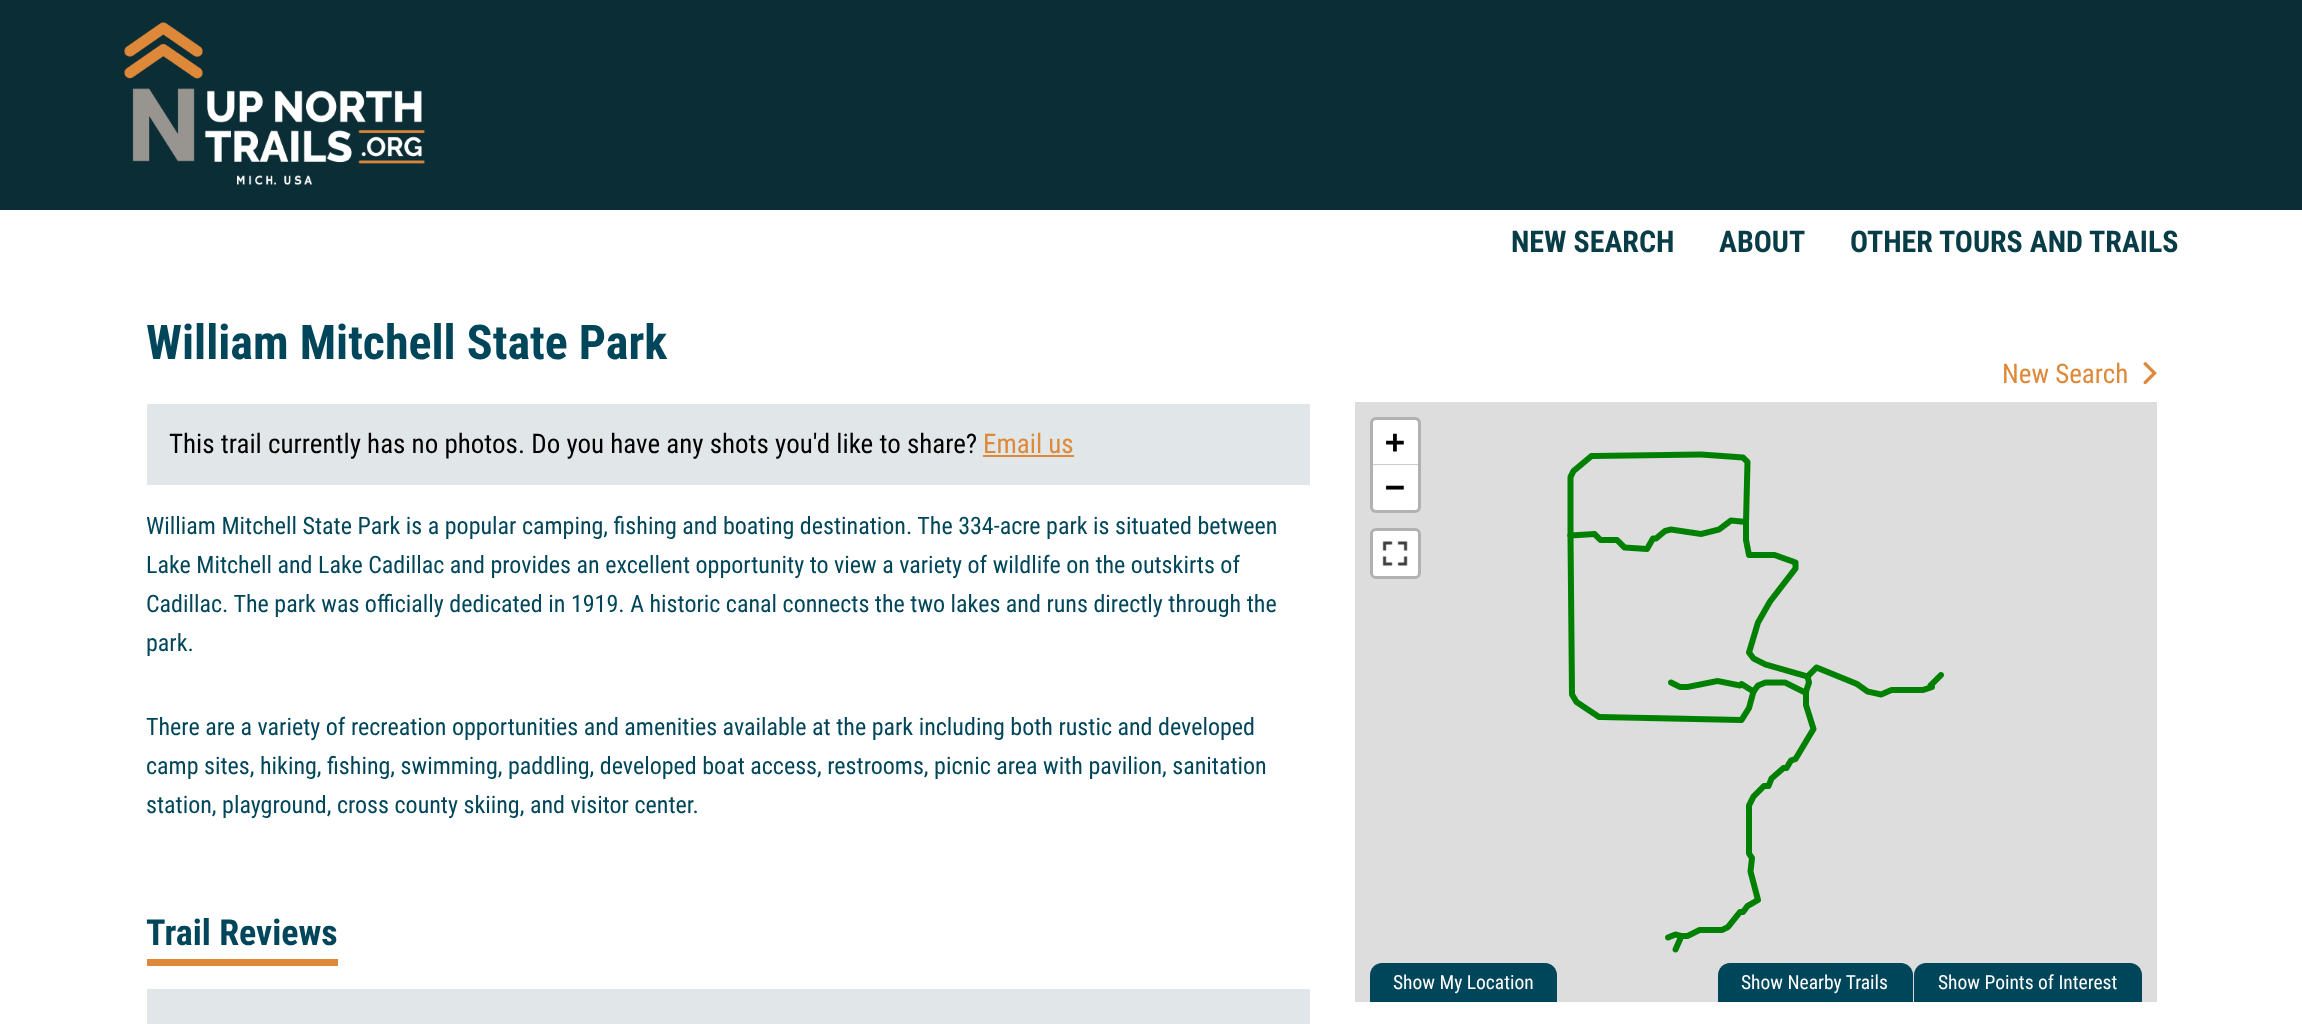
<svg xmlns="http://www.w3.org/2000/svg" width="2302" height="1024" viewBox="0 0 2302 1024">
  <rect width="100%" height="100%" fill="rgb(255,255,255)"/>
  <rect x="0" y="0" width="2302" height="210" fill="rgb(11,45,53)"/>
  <image x="124" y="22" width="301" height="163" href="pic1.png"/>
  <g font-family="Roboto Condensed" font-size="30" font-weight="bold" fill="rgb(8,60,71)">
    <text x="1511" y="252">NEW SEARCH</text>
    <text x="1719" y="252">ABOUT</text>
    <text x="1850" y="252">OTHER TOURS AND TRAILS</text>
  </g>
  <text x="146" y="359" font-family="Roboto Condensed" font-size="48" font-weight="bold" fill="rgb(0,70,90)">William Mitchell State Park</text>
  <rect x="147" y="404" width="1163" height="81" fill="rgb(225,230,232)"/>
  <text x="169" y="453" font-family="Roboto Condensed" font-size="27" fill="rgb(0,0,0)">This trail currently has no photos. Do you have any shots you'd like to share?</text>
  <text x="983" y="453" font-family="Roboto Condensed" font-size="27" fill="rgb(222,137,57)">Email us</text>
  <rect x="983" y="455" width="91" height="2" fill="rgb(222,137,57)"/>
  <g font-family="Roboto Condensed" font-size="24" fill="rgb(0,70,90)">
    <text>
      <tspan x="146" y="534">William Mitchell State Park is a popular camping, fishing and boating destination. The 334-acre park is situated between</tspan>
      <tspan x="146" y="573">Lake Mitchell and Lake Cadillac and provides an excellent opportunity to view a variety of wildlife on the outskirts of</tspan>
      <tspan x="146" y="612">Cadillac. The park was officially dedicated in 1919. A historic canal connects the two lakes and runs directly through the</tspan>
      <tspan x="146" y="651">park.</tspan>
    </text>
    <text>
      <tspan x="146" y="735">There are a variety of recreation opportunities and amenities available at the park including both rustic and developed</tspan>
      <tspan x="146" y="774">camp sites, hiking, fishing, swimming, paddling, developed boat access, restrooms, picnic area with pavilion, sanitation</tspan>
      <tspan x="146" y="813">station, playground, cross county skiing, and visitor center.</tspan>
    </text>
  </g>
  <text x="2002" y="383" font-family="Roboto Condensed" font-size="27" fill="rgb(222,137,57)">New Search</text>
  <image x="2143" y="362" width="14" height="23" href="pic2.png"/>
  <rect x="1355" y="402" width="802" height="600" fill="rgb(221,221,221)"/>
  <rect x="1371.5" y="418.5" width="48" height="93" rx="4.5" fill="none" stroke="rgb(177,177,177)" stroke-width="3"/>
  <path d="M1376 420H1415C1416.5 420 1418 421.5 1418 423V465H1373V423C1373 421.5 1374.5 420 1376 420Z" fill="rgb(255,255,255)"/>
  <rect x="1373" y="464" width="45" height="1" fill="rgb(204,204,204)"/>
  <text x="1385" y="453" font-family="DejaVu Sans Mono" font-size="33" font-weight="bold" fill="rgb(0,0,0)">+</text>
  <path d="M1373 465H1418V507C1418 508.5 1416.5 510 1415 510H1376C1374.5 510 1373 508.5 1373 507Z" fill="rgb(255,255,255)"/>
  <text x="1385" y="498" font-family="DejaVu Sans Mono" font-size="33" font-weight="bold" fill="rgb(0,0,0)">−</text>
  <rect x="1371.5" y="529.5" width="48" height="48" rx="4.5" fill="none" stroke="rgb(177,177,177)" stroke-width="3"/>
  <rect x="1373" y="531" width="45" height="45" rx="3" fill="rgb(255,255,255)"/>
  <image x="1382" y="541" width="26" height="25" href="pic3.png"/>
  <image x="1567" y="451" width="377" height="502" href="pic4.png"/>
  <path d="M1382 963H1545C1551.5 963 1557 968.5 1557 975V1002H1370V975C1370 968.5 1375.5 963 1382 963Z" fill="rgb(0,70,90)"/>
  <text x="1393" y="989" font-family="Roboto Condensed" font-size="19.5" fill="rgb(255,255,255)">Show My Location</text>
  <path d="M1730 963H1901C1907.5 963 1913 968.5 1913 975V1002H1718V975C1718 968.5 1723.5 963 1730 963Z" fill="rgb(0,70,90)"/>
  <text x="1741" y="989" font-family="Roboto Condensed" font-size="19.5" fill="rgb(255,255,255)">Show Nearby Trails</text>
  <path d="M1926 963H2130C2136.5 963 2142 968.5 2142 975V1002H1914V975C1914 968.5 1919.5 963 1926 963Z" fill="rgb(0,70,90)"/>
  <text x="1938" y="989" font-family="Roboto Condensed" font-size="19.5" fill="rgb(255,255,255)">Show Points of Interest</text>
  <rect x="147" y="959" width="191" height="7" fill="rgb(222,137,57)"/>
  <text x="146" y="945" font-family="Roboto Condensed" font-size="36" font-weight="bold" fill="rgb(0,70,90)">Trail Reviews</text>
  <rect x="147" y="989" width="1163" height="35" fill="rgb(225,230,232)"/>
</svg>
